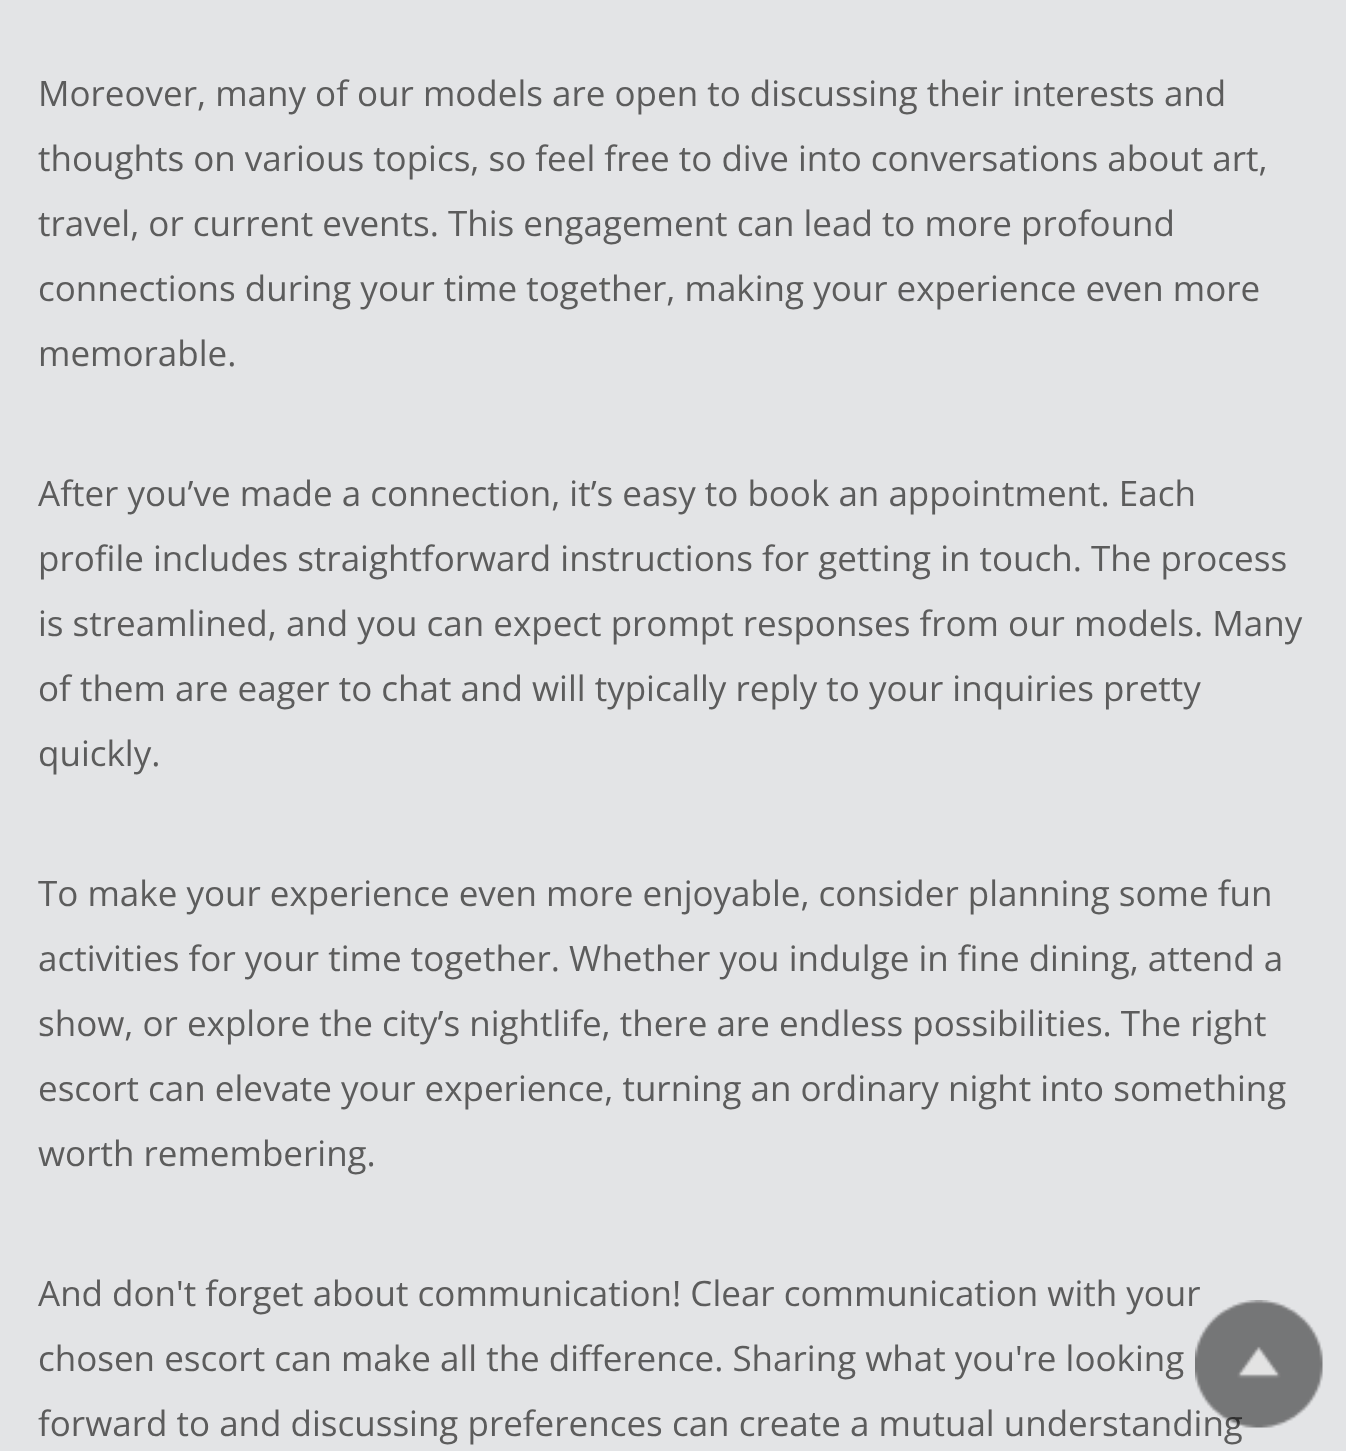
<svg xmlns="http://www.w3.org/2000/svg" width="1346" height="1451" viewBox="0 0 1346 1451">
  <rect width="100%" height="100%" fill="rgb(227,228,230)"/>
  <g font-family="Open Sans" font-size="35" fill="rgb(92,92,92)">
    <text>
      <tspan x="38" y="106">Moreover, many of our models are open to discussing their interests and</tspan>
      <tspan x="38" y="171">thoughts on various topics, so feel free to dive into conversations about art,</tspan>
      <tspan x="38" y="236">travel, or current events. This engagement can lead to more profound</tspan>
      <tspan x="38" y="301">connections during your time together, making your experience even more</tspan>
      <tspan x="38" y="366">memorable.</tspan>
    </text>
    <text>
      <tspan x="38" y="506">After you’ve made a connection, it’s easy to book an appointment. Each</tspan>
      <tspan x="38" y="571">profile includes straightforward instructions for getting in touch. The process</tspan>
      <tspan x="38" y="636">is streamlined, and you can expect prompt responses from our models. Many</tspan>
      <tspan x="38" y="701">of them are eager to chat and will typically reply to your inquiries pretty</tspan>
      <tspan x="38" y="766">quickly.</tspan>
    </text>
    <text>
      <tspan x="38" y="906">To make your experience even more enjoyable, consider planning some fun</tspan>
      <tspan x="38" y="971">activities for your time together. Whether you indulge in fine dining, attend a</tspan>
      <tspan x="38" y="1036">show, or explore the city’s nightlife, there are endless possibilities. The right</tspan>
      <tspan x="38" y="1101">escort can elevate your experience, turning an ordinary night into something</tspan>
      <tspan x="38" y="1166">worth remembering.</tspan>
    </text>
    <text>
      <tspan x="38" y="1306">And don't forget about communication! Clear communication with your</tspan>
      <tspan x="38" y="1371">chosen escort can make all the difference. Sharing what you're looking</tspan>
      <tspan x="38" y="1436">forward to and discussing preferences can create a mutual understanding</tspan>
    </text>
  </g>
  <image x="1195" y="1300" width="128" height="128" href="pic1.png"/>
</svg>
